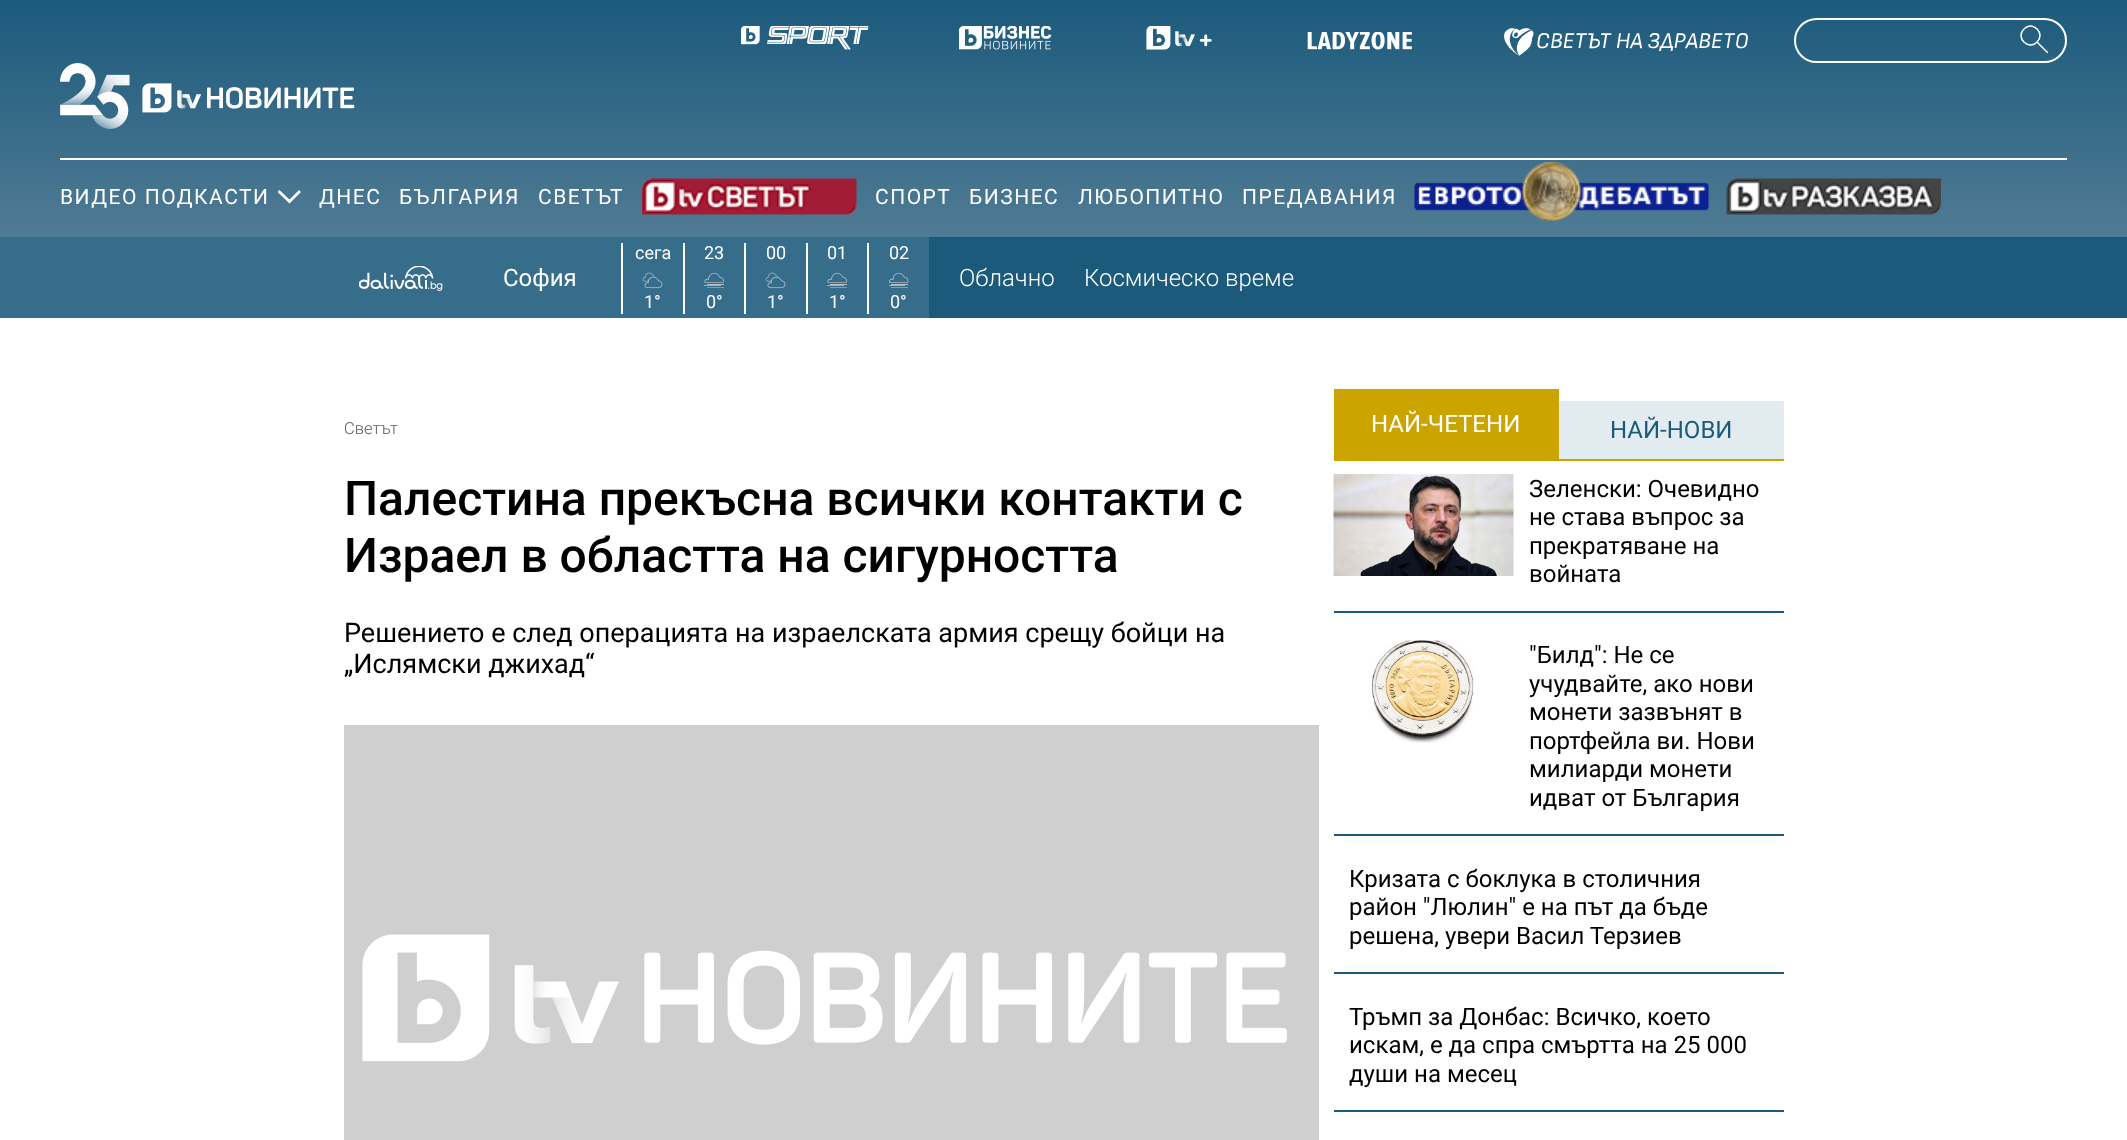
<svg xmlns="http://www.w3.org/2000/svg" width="2127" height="1140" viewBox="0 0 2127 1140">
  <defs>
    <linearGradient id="g1" gradientUnits="userSpaceOnUse" x1="1064" y1="0" x2="1064" y2="237"><stop offset="0" stop-color="rgb(28,90,124)"/><stop offset="1" stop-color="rgb(80,123,148)"/></linearGradient>
    <clipPath id="clip1"><rect x="2018" y="23" width="30" height="30"/></clipPath>
  </defs>
  <rect width="100%" height="100%" fill="rgb(255,255,255)"/>
  <rect x="0" y="0" width="2127" height="237" fill="url(#g1)"/>
  <image x="741" y="26" width="128" height="24" href="pic1.png"/>
  <image x="959" y="26" width="93" height="24" href="pic2.png"/>
  <image x="1146" y="26" width="66" height="24" href="pic3.png"/>
  <image x="1307" y="32" width="105" height="18" href="pic4.png"/>
  <image x="1504" y="28" width="244" height="28" href="pic5.png"/>
  <rect x="1795" y="19" width="271" height="43" rx="21.5" fill="none" stroke="rgb(255,255,255)" stroke-width="2"/>
  <path d="M2024 29C2032.5 20 2046 33.5 2037 42C2028.5 51 2015 37.5 2024 29Z" fill="none" stroke="rgb(255,255,255)" stroke-width="1.5"/>
  <g clip-path="url(#clip1)">
    <path d="M2037 42L2048.5 53.5" fill="none" stroke="rgb(255,255,255)" stroke-width="1.5"/>
  </g>
  <image x="60" y="63" width="295" height="66" href="pic6.png"/>
  <rect x="60" y="158" width="2007" height="2" fill="rgb(255,255,255)"/>
  <text x="60" y="204" font-family="Roboto" font-size="21" letter-spacing="1.5" fill="rgb(255,255,255)">ВИДЕО ПОДКАСТИ</text>
  <path d="M300 191L289.5 201.5L278.5 191" fill="none" stroke="rgb(255,255,255)" stroke-width="2.7"/>
  <g font-family="Roboto" font-size="21" letter-spacing="1.5" fill="rgb(255,255,255)">
    <text x="319" y="204">ДНЕС</text>
    <text x="399" y="204">БЪЛГАРИЯ</text>
    <text x="538" y="204">СВЕТЪТ</text>
  </g>
  <image x="642" y="178" width="215" height="37" href="pic7.png"/>
  <g font-family="Roboto" font-size="21" letter-spacing="1.5" fill="rgb(255,255,255)">
    <text x="875" y="204">СПОРТ</text>
    <text x="969" y="204">БИЗНЕС</text>
    <text x="1078" y="204">ЛЮБОПИТНО</text>
    <text x="1242" y="204">ПРЕДАВАНИЯ</text>
  </g>
  <image x="1414" y="162" width="295" height="59" href="pic8.png"/>
  <image x="1726" y="178" width="215" height="37" href="pic9.png"/>
  <rect x="0" y="237" width="929" height="81" fill="rgb(54,109,139)"/>
  <rect x="929" y="237" width="1198" height="81" fill="rgb(28,90,124)"/>
  <image x="359" y="266" width="84" height="25" href="pic10.png"/>
  <text x="503" y="286" font-family="Roboto" font-size="24" fill="rgb(255,255,255)">София</text>
  <rect x="621" y="243" width="2" height="71" fill="rgb(255,255,255)"/>
  <text x="635" y="259" font-family="Roboto" font-size="18" fill="rgb(255,255,255)">сега</text>
  <image x="642" y="272" width="21" height="17" href="pic11.png"/>
  <text x="644" y="308" font-family="Roboto" font-size="18" fill="rgb(255,255,255)">1°</text>
  <rect x="683" y="243" width="2" height="71" fill="rgb(255,255,255)"/>
  <text x="704" y="259" font-family="Roboto" font-size="18" fill="rgb(255,255,255)">23</text>
  <image x="704" y="273" width="20" height="15" href="pic12.png"/>
  <text x="706" y="308" font-family="Roboto" font-size="18" fill="rgb(255,255,255)">0°</text>
  <rect x="744" y="243" width="2" height="71" fill="rgb(255,255,255)"/>
  <text x="766" y="259" font-family="Roboto" font-size="18" fill="rgb(255,255,255)">00</text>
  <image x="765" y="272" width="21" height="17" href="pic11.png"/>
  <text x="767" y="308" font-family="Roboto" font-size="18" fill="rgb(255,255,255)">1°</text>
  <rect x="806" y="243" width="2" height="71" fill="rgb(255,255,255)"/>
  <text x="827" y="259" font-family="Roboto" font-size="18" fill="rgb(255,255,255)">01</text>
  <image x="827" y="273" width="20" height="15" href="pic12.png"/>
  <text x="829" y="308" font-family="Roboto" font-size="18" fill="rgb(255,255,255)">1°</text>
  <rect x="867" y="243" width="2" height="71" fill="rgb(255,255,255)"/>
  <text x="889" y="259" font-family="Roboto" font-size="18" fill="rgb(255,255,255)">02</text>
  <image x="889" y="273" width="20" height="15" href="pic13.png"/>
  <text x="890" y="308" font-family="Roboto" font-size="18" fill="rgb(255,255,255)">0°</text>
  <g font-family="Roboto" font-size="24" font-weight="300" fill="rgb(255,255,255)">
    <text x="959" y="286">Облачно</text>
    <text x="1084" y="286">Космическо време</text>
  </g>
  <text x="344" y="434" font-family="Roboto" font-size="16.5" font-weight="300" fill="rgb(90,88,88)">Светът</text>
  <g font-family="Roboto" font-size="48" font-weight="500" fill="rgb(0,0,0)">
    <text>
      <tspan x="344" y="515">Палестина прекъсна всички контакти с</tspan>
      <tspan x="344" y="572">Израел в областта на сигурността</tspan>
    </text>
  </g>
  <g font-family="Roboto" font-size="27" fill="rgb(0,0,0)">
    <text>
      <tspan x="344" y="642">Решението е след операцията на израелската армия срещу бойци на</tspan>
      <tspan x="344" y="673">„Ислямски джихад“</tspan>
    </text>
  </g>
  <rect x="344" y="725" width="975" height="415" fill="rgb(207,207,207)"/>
  <image x="362" y="934" width="925" height="128" href="pic14.png"/>
  <rect x="1334" y="389" width="225" height="72" fill="rgb(203,164,0)"/>
  <text x="1371" y="432" font-family="Roboto" font-size="24" fill="rgb(255,255,255)">НАЙ-ЧЕТЕНИ</text>
  <rect x="1559" y="401" width="225" height="58" fill="rgb(226,236,240)"/>
  <rect x="1559" y="459" width="225" height="2" fill="rgb(203,164,0)"/>
  <text x="1610" y="438" font-family="Roboto" font-size="24" fill="rgb(28,90,124)">НАЙ-НОВИ</text>
  <rect x="1334" y="611" width="450" height="2" fill="rgb(28,90,124)"/>
  <image x="1333" y="474" width="181" height="102" href="pic15.png"/>
  <g font-family="Roboto" font-size="24" fill="rgb(0,0,0)">
    <text>
      <tspan x="1529" y="497">Зеленски: Очевидно</tspan>
      <tspan x="1529" y="525">не става въпрос за</tspan>
      <tspan x="1529" y="554">прекратяване на</tspan>
      <tspan x="1529" y="582">войната</tspan>
    </text>
  </g>
  <rect x="1334" y="834" width="450" height="2" fill="rgb(28,90,124)"/>
  <image x="1369" y="640" width="105" height="103" href="pic16.png"/>
  <g font-family="Roboto" font-size="24" fill="rgb(0,0,0)">
    <text>
      <tspan x="1529" y="663">"Билд": Не се</tspan>
      <tspan x="1529" y="692">учудвайте, ако нови</tspan>
      <tspan x="1529" y="720">монети зазвънят в</tspan>
      <tspan x="1529" y="749">портфейла ви. Нови</tspan>
      <tspan x="1529" y="777">милиарди монети</tspan>
      <tspan x="1529" y="806">идват от България</tspan>
    </text>
  </g>
  <rect x="1334" y="972" width="450" height="2" fill="rgb(28,90,124)"/>
  <g font-family="Roboto" font-size="24" fill="rgb(0,0,0)">
    <text>
      <tspan x="1349" y="887">Кризата с боклука в столичния</tspan>
      <tspan x="1349" y="915">район "Люлин" е на път да бъде</tspan>
      <tspan x="1349" y="944">решена, увери Васил Терзиев</tspan>
    </text>
  </g>
  <rect x="1334" y="1110" width="450" height="2" fill="rgb(28,90,124)"/>
  <g font-family="Roboto" font-size="24" fill="rgb(0,0,0)">
    <text>
      <tspan x="1349" y="1025">Тръмп за Донбас: Всичко, което</tspan>
      <tspan x="1349" y="1053">искам, е да спра смъртта на 25 000</tspan>
      <tspan x="1349" y="1082">души на месец</tspan>
    </text>
  </g>
</svg>
